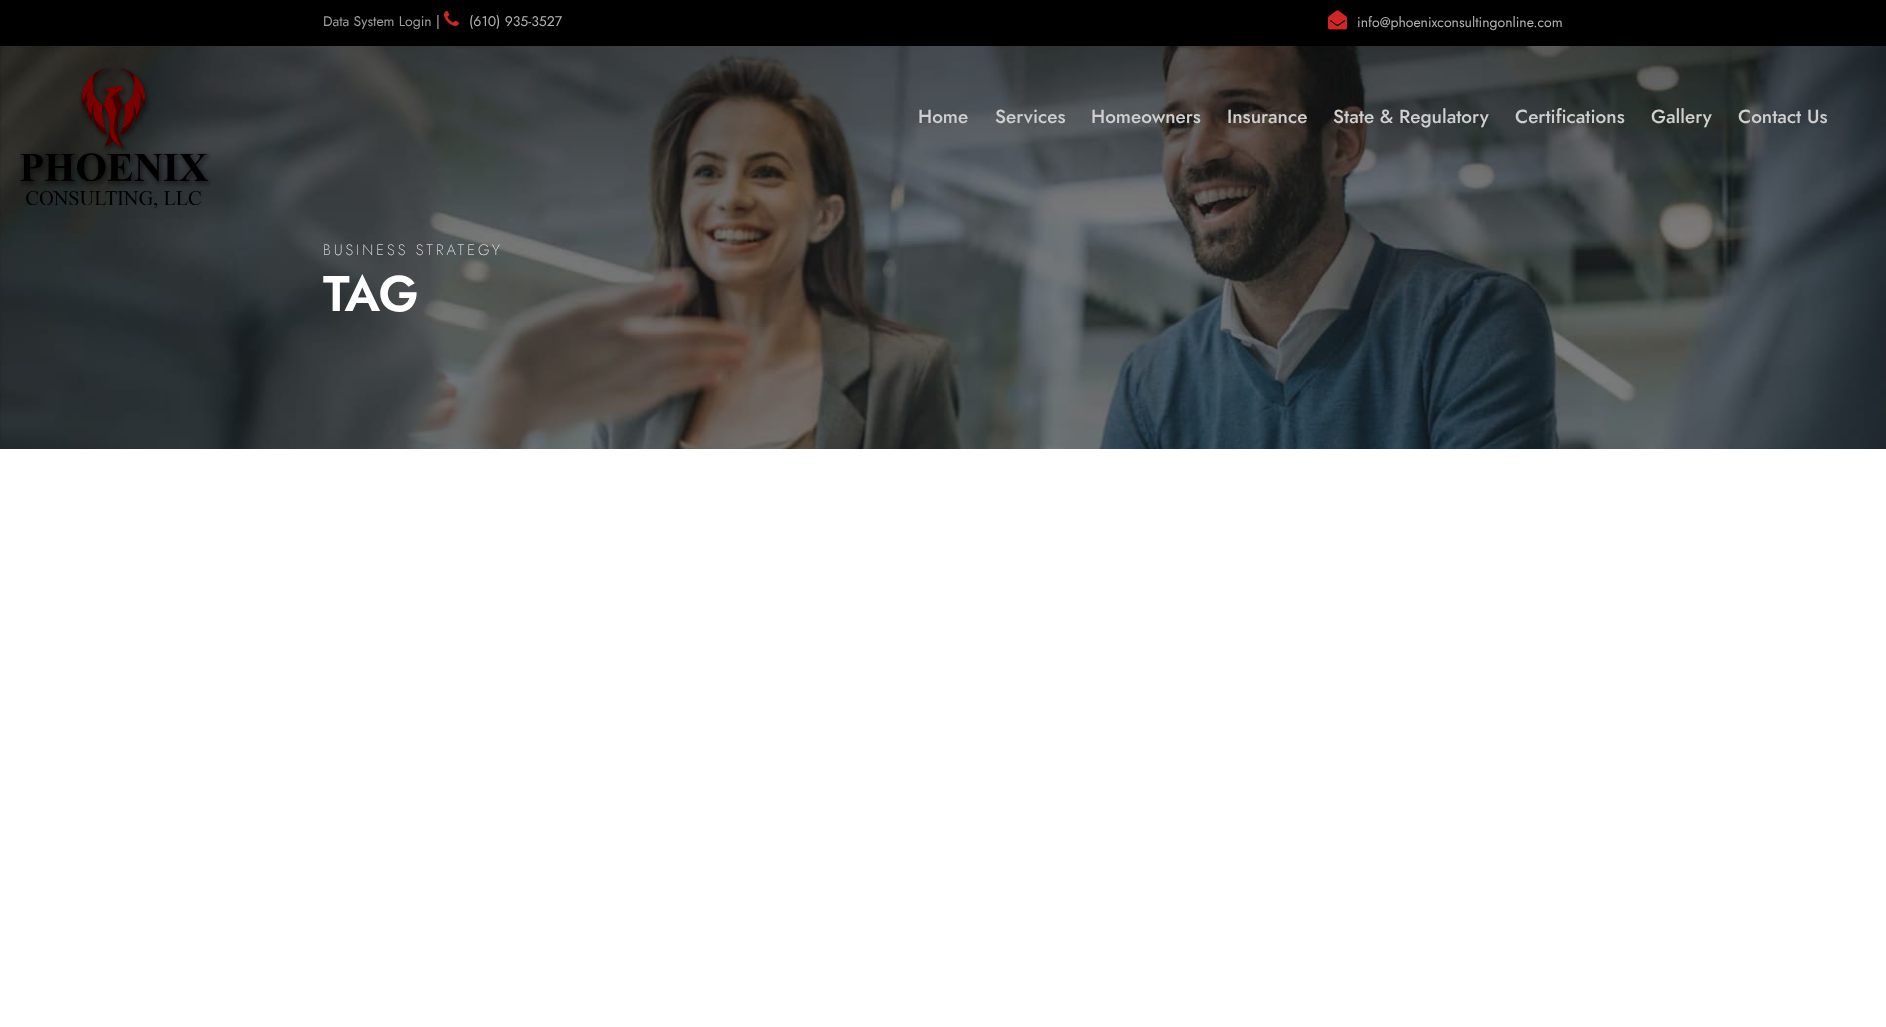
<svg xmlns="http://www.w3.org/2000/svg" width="1886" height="1027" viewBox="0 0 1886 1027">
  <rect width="100%" height="100%" fill="rgb(255,255,255)"/>
  <rect x="0" y="0" width="1886" height="46" fill="rgb(0,0,0)"/>
  <text x="323" y="26" font-family="Jost" font-size="14" fill="rgb(159,159,159)">Data System Login</text>
  <text x="436" y="26" font-family="Jost" font-size="14" fill="rgb(179,179,179)">|</text>
  <image x="444" y="11" width="15" height="15" href="pic1.png"/>
  <text x="469" y="26" font-family="Jost" font-size="14" fill="rgb(179,179,179)">(610) 935-3527</text>
  <image x="1328" y="10" width="19" height="20" href="pic2.png"/>
  <text x="1357" y="27" font-family="Jost" font-size="14" fill="rgb(179,179,179)">info@phoenixconsultingonline.com</text>
  <image x="0" y="46" width="1886" height="403" href="pic4.png"/>
  <image x="20" y="68" width="191" height="141" href="pic3.png"/>
  <g font-family="Jost" font-size="19" font-weight="500" fill="rgb(207,207,207)">
    <text x="918" y="123">Home</text>
    <text x="995" y="123">Services</text>
    <text x="1091" y="123">Homeowners</text>
    <text x="1227" y="123">Insurance</text>
    <text x="1333" y="123">State &amp; Regulatory</text>
    <text x="1515" y="123">Certifications</text>
    <text x="1651" y="123">Gallery</text>
    <text x="1738" y="123">Contact Us</text>
  </g>
  <text x="323" y="255" font-family="Jost" font-size="15" font-weight="200" letter-spacing="3" fill="rgb(255,255,255)">BUSINESS STRATEGY</text>
  <text x="323" y="311" font-family="Jost" font-size="50" font-weight="600" fill="rgb(255,255,255)">TAG</text>
</svg>
